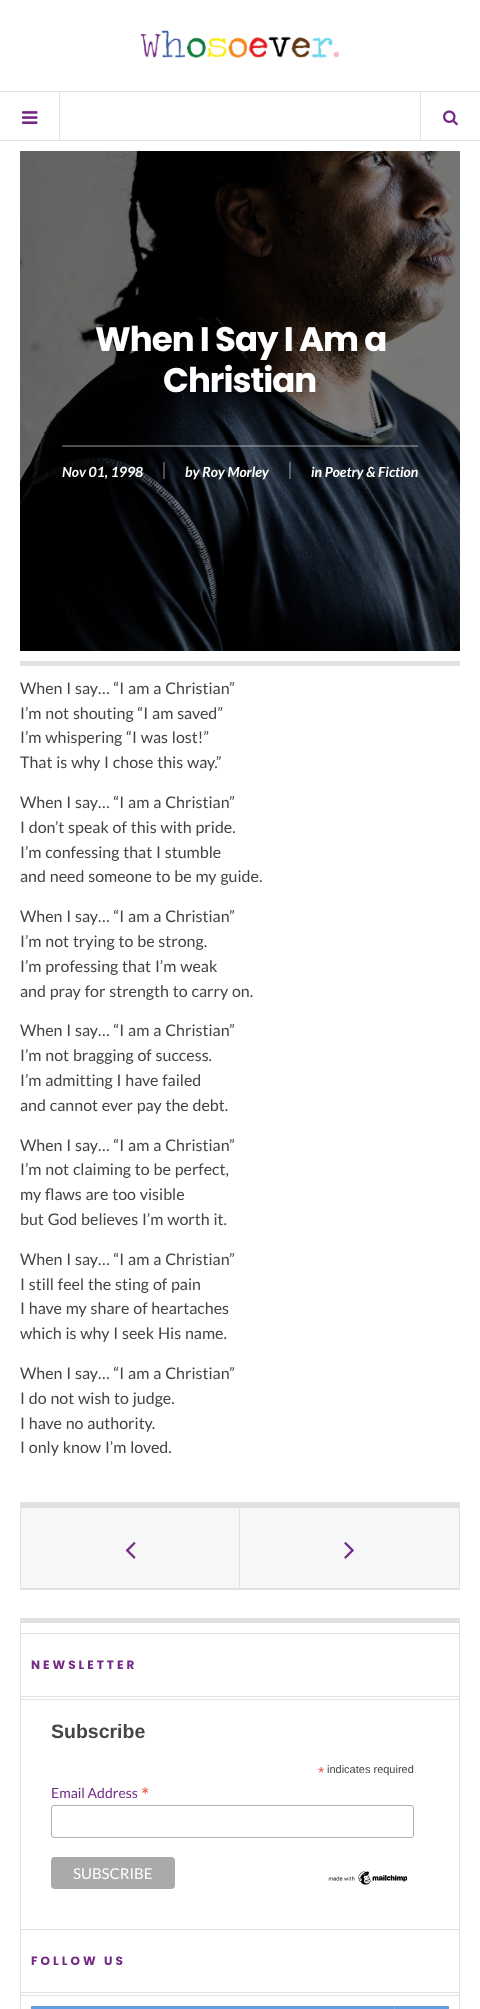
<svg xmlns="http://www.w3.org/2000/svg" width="480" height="2009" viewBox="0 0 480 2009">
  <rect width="100%" height="100%" fill="rgb(255,255,255)"/>
  <image x="140" y="30" width="200" height="28" href="pic1.png"/>
  <rect x="0" y="91" width="480" height="1" fill="rgb(225,225,225)"/>
  <rect x="0" y="140" width="480" height="1" fill="rgb(225,225,225)"/>
  <rect x="59" y="92" width="1" height="48" fill="rgb(225,225,225)"/>
  <image x="22" y="111" width="16" height="13" href="pic2.png"/>
  <rect x="420" y="92" width="1" height="48" fill="rgb(225,225,225)"/>
  <image x="443" y="110" width="15" height="16" href="pic3.png"/>
  <image x="20" y="151" width="440" height="500" href="pic4.png"/>
  <g font-family="Poppins" font-size="34" font-weight="bold" letter-spacing="-1" fill="rgb(255,255,255)">
    <text x="95" y="351">When I Say I Am a</text>
    <text x="163" y="392">Christian</text>
  </g>
  <rect x="62" y="445" width="356" height="2" fill="rgba(255,255,255,0.3)"/>
  <rect x="163" y="462" width="2" height="17" fill="rgba(255,255,255,0.3)"/>
  <text x="62" y="477" font-family="Lato" font-size="14" font-weight="bold" font-style="italic" fill="rgb(255,255,255)">Nov 01, 1998</text>
  <rect x="289" y="462" width="2" height="17" fill="rgba(255,255,255,0.3)"/>
  <g font-family="Lato" font-size="14" font-weight="bold" font-style="italic" fill="rgb(255,255,255)">
    <text x="185" y="477">by Roy Morley</text>
    <text x="311" y="477">in Poetry &amp; Fiction</text>
  </g>
  <rect x="20" y="661" width="440" height="5" fill="rgb(225,225,225)"/>
  <g font-family="Lato" font-size="16" fill="rgb(68,68,68)">
    <text>
      <tspan x="20" y="694" word-spacing="0.75">When I say… “I am a Christian”</tspan>
      <tspan x="20" y="719" word-spacing="0.75">I’m not shouting “I am saved”</tspan>
      <tspan x="20" y="743" word-spacing="0.75">I’m whispering “I was lost!”</tspan>
      <tspan x="20" y="768" word-spacing="0.75">That is why I chose this way.”</tspan>
    </text>
    <text>
      <tspan x="20" y="808" word-spacing="0.75">When I say… “I am a Christian”</tspan>
      <tspan x="20" y="833" word-spacing="0.75">I don’t speak of this with pride.</tspan>
      <tspan x="20" y="858" word-spacing="0.75">I’m confessing that I stumble</tspan>
      <tspan x="20" y="882" word-spacing="0.75">and need someone to be my guide.</tspan>
    </text>
    <text>
      <tspan x="20" y="922" word-spacing="0.75">When I say… “I am a Christian”</tspan>
      <tspan x="20" y="947" word-spacing="0.75">I’m not trying to be strong.</tspan>
      <tspan x="20" y="972" word-spacing="0.75">I’m professing that I’m weak</tspan>
      <tspan x="20" y="997" word-spacing="0.75">and pray for strength to carry on.</tspan>
    </text>
    <text>
      <tspan x="20" y="1036" word-spacing="0.75">When I say… “I am a Christian”</tspan>
      <tspan x="20" y="1061" word-spacing="0.75">I’m not bragging of success.</tspan>
      <tspan x="20" y="1086" word-spacing="0.75">I’m admitting I have failed</tspan>
      <tspan x="20" y="1111" word-spacing="0.75">and cannot ever pay the debt.</tspan>
    </text>
    <text>
      <tspan x="20" y="1151" word-spacing="0.75">When I say… “I am a Christian”</tspan>
      <tspan x="20" y="1175" word-spacing="0.75">I’m not claiming to be perfect,</tspan>
      <tspan x="20" y="1200" word-spacing="0.75">my flaws are too visible</tspan>
      <tspan x="20" y="1225" word-spacing="0.75">but God believes I’m worth it.</tspan>
    </text>
    <text>
      <tspan x="20" y="1265" word-spacing="0.75">When I say… “I am a Christian”</tspan>
      <tspan x="20" y="1290" word-spacing="0.75">I still feel the sting of pain</tspan>
      <tspan x="20" y="1314" word-spacing="0.75">I have my share of heartaches</tspan>
      <tspan x="20" y="1339" word-spacing="0.75">which is why I seek His name.</tspan>
    </text>
    <text>
      <tspan x="20" y="1379" word-spacing="0.75">When I say… “I am a Christian”</tspan>
      <tspan x="20" y="1404" word-spacing="0.75">I do not wish to judge.</tspan>
      <tspan x="20" y="1429" word-spacing="0.75">I have no authority.</tspan>
      <tspan x="20" y="1453" word-spacing="0.75">I only know I’m loved.</tspan>
    </text>
  </g>
  <rect x="20" y="1502" width="440" height="5" fill="rgb(225,225,225)"/>
  <rect x="459" y="1502" width="1" height="88" fill="rgb(225,225,225)"/>
  <rect x="20" y="1589" width="440" height="1" fill="rgb(225,225,225)"/>
  <rect x="20" y="1502" width="1" height="88" fill="rgb(225,225,225)"/>
  <rect x="21" y="1588" width="438" height="1" fill="rgb(225,225,225)"/>
  <rect x="21" y="1507" width="438" height="1" fill="rgb(225,225,225)"/>
  <rect x="21" y="1508" width="218" height="80" fill="rgb(247,247,247)"/>
  <rect x="239" y="1508" width="1" height="80" fill="rgb(225,225,225)"/>
  <image x="125" y="1542" width="11" height="17" href="pic5.png"/>
  <rect x="240" y="1508" width="219" height="80" fill="rgb(247,247,247)"/>
  <image x="344" y="1542" width="10" height="17" href="pic6.png"/>
  <rect x="20" y="1618" width="440" height="5" fill="rgb(225,225,225)"/>
  <rect x="459" y="1618" width="1" height="391" fill="rgb(225,225,225)"/>
  <rect x="20" y="1618" width="1" height="391" fill="rgb(225,225,225)"/>
  <rect x="21" y="1633" width="438" height="1" fill="rgb(225,225,225)"/>
  <rect x="21" y="1696" width="438" height="1" fill="rgb(225,225,225)"/>
  <rect x="21" y="1699" width="438" height="1" fill="rgb(225,225,225)"/>
  <text x="31" y="1669" font-family="Poppins" font-size="12" font-weight="bold" letter-spacing="3" fill="rgb(115,42,133)">NEWSLETTER</text>
  <text x="51" y="1738" font-family="Liberation Sans" font-size="19.5" font-weight="bold" fill="rgb(68,68,68)">Subscribe</text>
  <text x="318" y="1778" font-family="Liberation Sans" font-size="16" fill="rgb(232,92,65)">*</text>
  <text x="327" y="1773" font-family="Liberation Sans" font-size="11" fill="rgb(68,68,68)">indicates required</text>
  <text x="51" y="1798" font-family="Lato" font-size="14" fill="rgb(115,42,133)">Email Address</text>
  <text x="141" y="1803" font-family="Lato" font-size="21" fill="rgb(232,92,65)">*</text>
  <rect x="51.5" y="1805.5" width="362" height="32" rx="2.5" fill="none" stroke="rgb(171,176,178)"/>
  <rect x="51" y="1857" width="124" height="32" rx="4" fill="rgb(170,170,170)"/>
  <text x="73" y="1879" font-family="Lato" font-size="15" fill="rgb(255,255,255)">SUBSCRIBE</text>
  <image x="328" y="1871" width="80" height="14" href="pic7.png"/>
  <rect x="21" y="1929" width="438" height="1" fill="rgb(225,225,225)"/>
  <rect x="21" y="1992" width="438" height="1" fill="rgb(225,225,225)"/>
  <rect x="21" y="1995" width="438" height="1" fill="rgb(225,225,225)"/>
  <text x="31" y="1965" font-family="Poppins" font-size="12" font-weight="bold" letter-spacing="3" fill="rgb(115,42,133)">FOLLOW US</text>
  <rect x="31" y="2006" width="418" height="3" fill="rgb(101,157,227)"/>
  <rect x="394" y="2006" width="1" height="3" fill="rgb(132,177,233)"/>
</svg>
